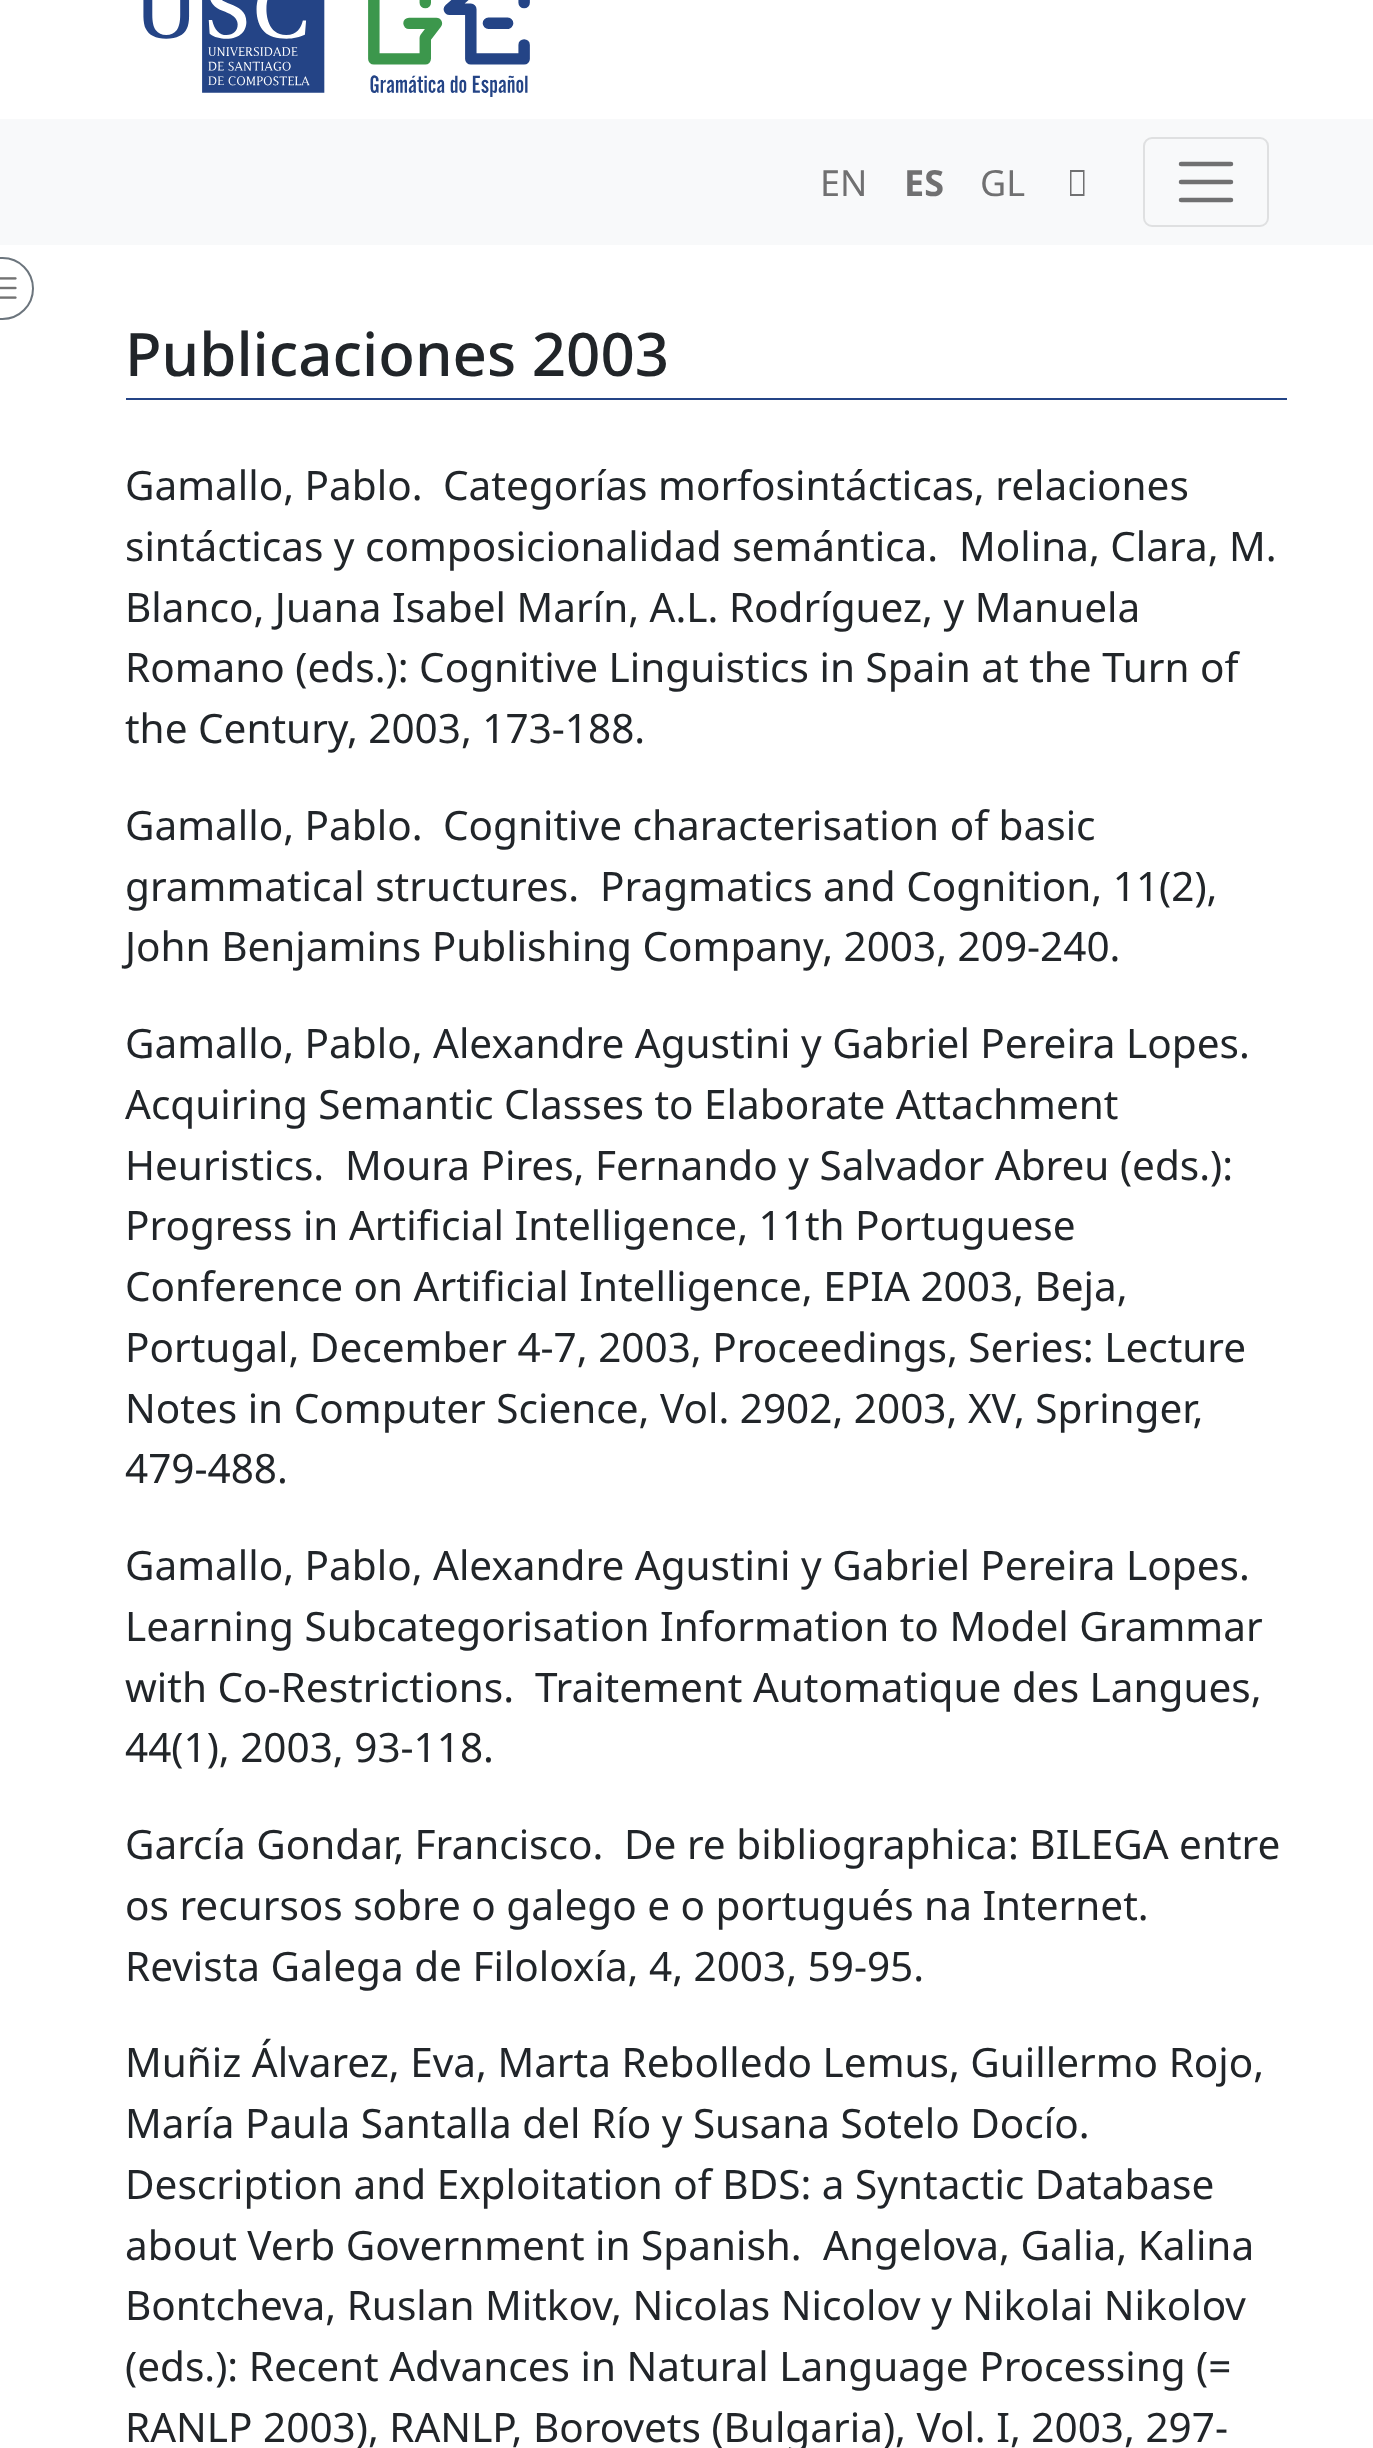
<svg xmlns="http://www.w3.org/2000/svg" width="1373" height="2448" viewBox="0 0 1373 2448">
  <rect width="100%" height="100%" fill="rgb(255,255,255)"/>
  <image x="143" y="0" width="387" height="97" href="pic1.png"/>
  <rect x="0" y="119" width="1373" height="126" fill="rgb(248,249,250)"/>
  <text x="820" y="196" font-family="Noto Sans" font-size="36" fill="rgb(112,112,113)">EN</text>
  <text x="904" y="196" font-family="Noto Sans" font-size="36" font-weight="bold" fill="rgb(112,112,113)">ES</text>
  <text x="980" y="196" font-family="Noto Sans" font-size="36" fill="rgb(112,112,113)">GL</text>
  <path d="M1070 196V170H1084.5V196ZM1071.5 194H1083V172H1071.5Z" fill="rgb(112,112,113)"/>
  <rect x="1144" y="138" width="124" height="88" rx="8" fill="none" stroke="rgb(223,224,225)" stroke-width="2"/>
  <path d="M1181 164H1231M1181 182H1231M1181 200H1231" fill="none" stroke="rgb(112,112,113)" stroke-width="4.5" stroke-linecap="round"/>
  <circle cx="2.5" cy="288.5" r="30.5" fill="none" stroke="rgb(108,117,125)" stroke-width="2"/>
  <image x="0" y="277" width="17" height="22" href="pic2.png"/>
  <rect x="126" y="398" width="1161" height="2" fill="rgb(36,68,134)"/>
  <text x="125" y="376" font-family="Noto Sans" font-size="60" font-weight="500" fill="rgb(33,37,41)">Publicaciones 2003</text>
  <g font-family="Noto Sans" font-size="40.5" fill="rgb(33,37,41)">
    <text x="125" y="500">Gamallo, Pablo.</text>
    <text x="443" y="500">Categorías morfosintácticas, relaciones</text>
    <text x="125" y="561">sintácticas y composicionalidad semántica.</text>
    <text x="959" y="561">Molina, Clara, M.</text>
    <text>
      <tspan x="125" y="622">Blanco, Juana Isabel Marín, A.L. Rodríguez, y Manuela</tspan>
      <tspan x="125" y="682">Romano (eds.): Cognitive Linguistics in Spain at the Turn of</tspan>
      <tspan x="125" y="743">the Century, 2003, 173-188.</tspan>
    </text>
    <text x="125" y="840">Gamallo, Pablo.</text>
    <text x="443" y="840">Cognitive characterisation of basic</text>
    <text x="125" y="901">grammatical structures.</text>
    <text x="600" y="901">Pragmatics and Cognition, 11(2),</text>
    <text x="125" y="961">John Benjamins Publishing Company, 2003, 209-240.</text>
    <text>
      <tspan x="125" y="1058">Gamallo, Pablo, Alexandre Agustini y Gabriel Pereira Lopes.</tspan>
      <tspan x="125" y="1119">Acquiring Semantic Classes to Elaborate Attachment</tspan>
      <tspan x="125" y="1180">Heuristics.</tspan>
    </text>
    <text x="345" y="1180">Moura Pires, Fernando y Salvador Abreu (eds.):</text>
    <text>
      <tspan x="125" y="1240">Progress in Artificial Intelligence, 11th Portuguese</tspan>
      <tspan x="125" y="1301">Conference on Artificial Intelligence, EPIA 2003, Beja,</tspan>
      <tspan x="125" y="1362">Portugal, December 4-7, 2003, Proceedings, Series: Lecture</tspan>
      <tspan x="125" y="1423">Notes in Computer Science, Vol. 2902, 2003, XV, Springer,</tspan>
      <tspan x="125" y="1483">479-488.</tspan>
    </text>
    <text>
      <tspan x="125" y="1580">Gamallo, Pablo, Alexandre Agustini y Gabriel Pereira Lopes.</tspan>
      <tspan x="125" y="1641">Learning Subcategorisation Information to Model Grammar</tspan>
      <tspan x="125" y="1702">with Co-Restrictions.</tspan>
    </text>
    <text x="535" y="1702">Traitement Automatique des Langues,</text>
    <text x="125" y="1762">44(1), 2003, 93-118.</text>
    <text x="125" y="1859">García Gondar, Francisco.</text>
    <text x="624" y="1859">De re bibliographica: BILEGA entre</text>
    <text>
      <tspan x="125" y="1920">os recursos sobre o galego e o portugués na Internet.</tspan>
      <tspan x="125" y="1981">Revista Galega de Filoloxía, 4, 2003, 59-95.</tspan>
    </text>
    <text>
      <tspan x="125" y="2077">Muñiz Álvarez, Eva, Marta Rebolledo Lemus, Guillermo Rojo,</tspan>
      <tspan x="125" y="2138">María Paula Santalla del Río y Susana Sotelo Docío.</tspan>
      <tspan x="125" y="2199">Description and Exploitation of BDS: a Syntactic Database</tspan>
      <tspan x="125" y="2260">about Verb Government in Spanish.</tspan>
    </text>
    <text x="823" y="2260">Angelova, Galia, Kalina</text>
    <text>
      <tspan x="125" y="2320">Bontcheva, Ruslan Mitkov, Nicolas Nicolov y Nikolai Nikolov</tspan>
      <tspan x="125" y="2381">(eds.): Recent Advances in Natural Language Processing (=</tspan>
      <tspan x="125" y="2442">RANLP 2003), RANLP, Borovets (Bulgaria), Vol. I, 2003, 297-</tspan>
    </text>
  </g>
</svg>
